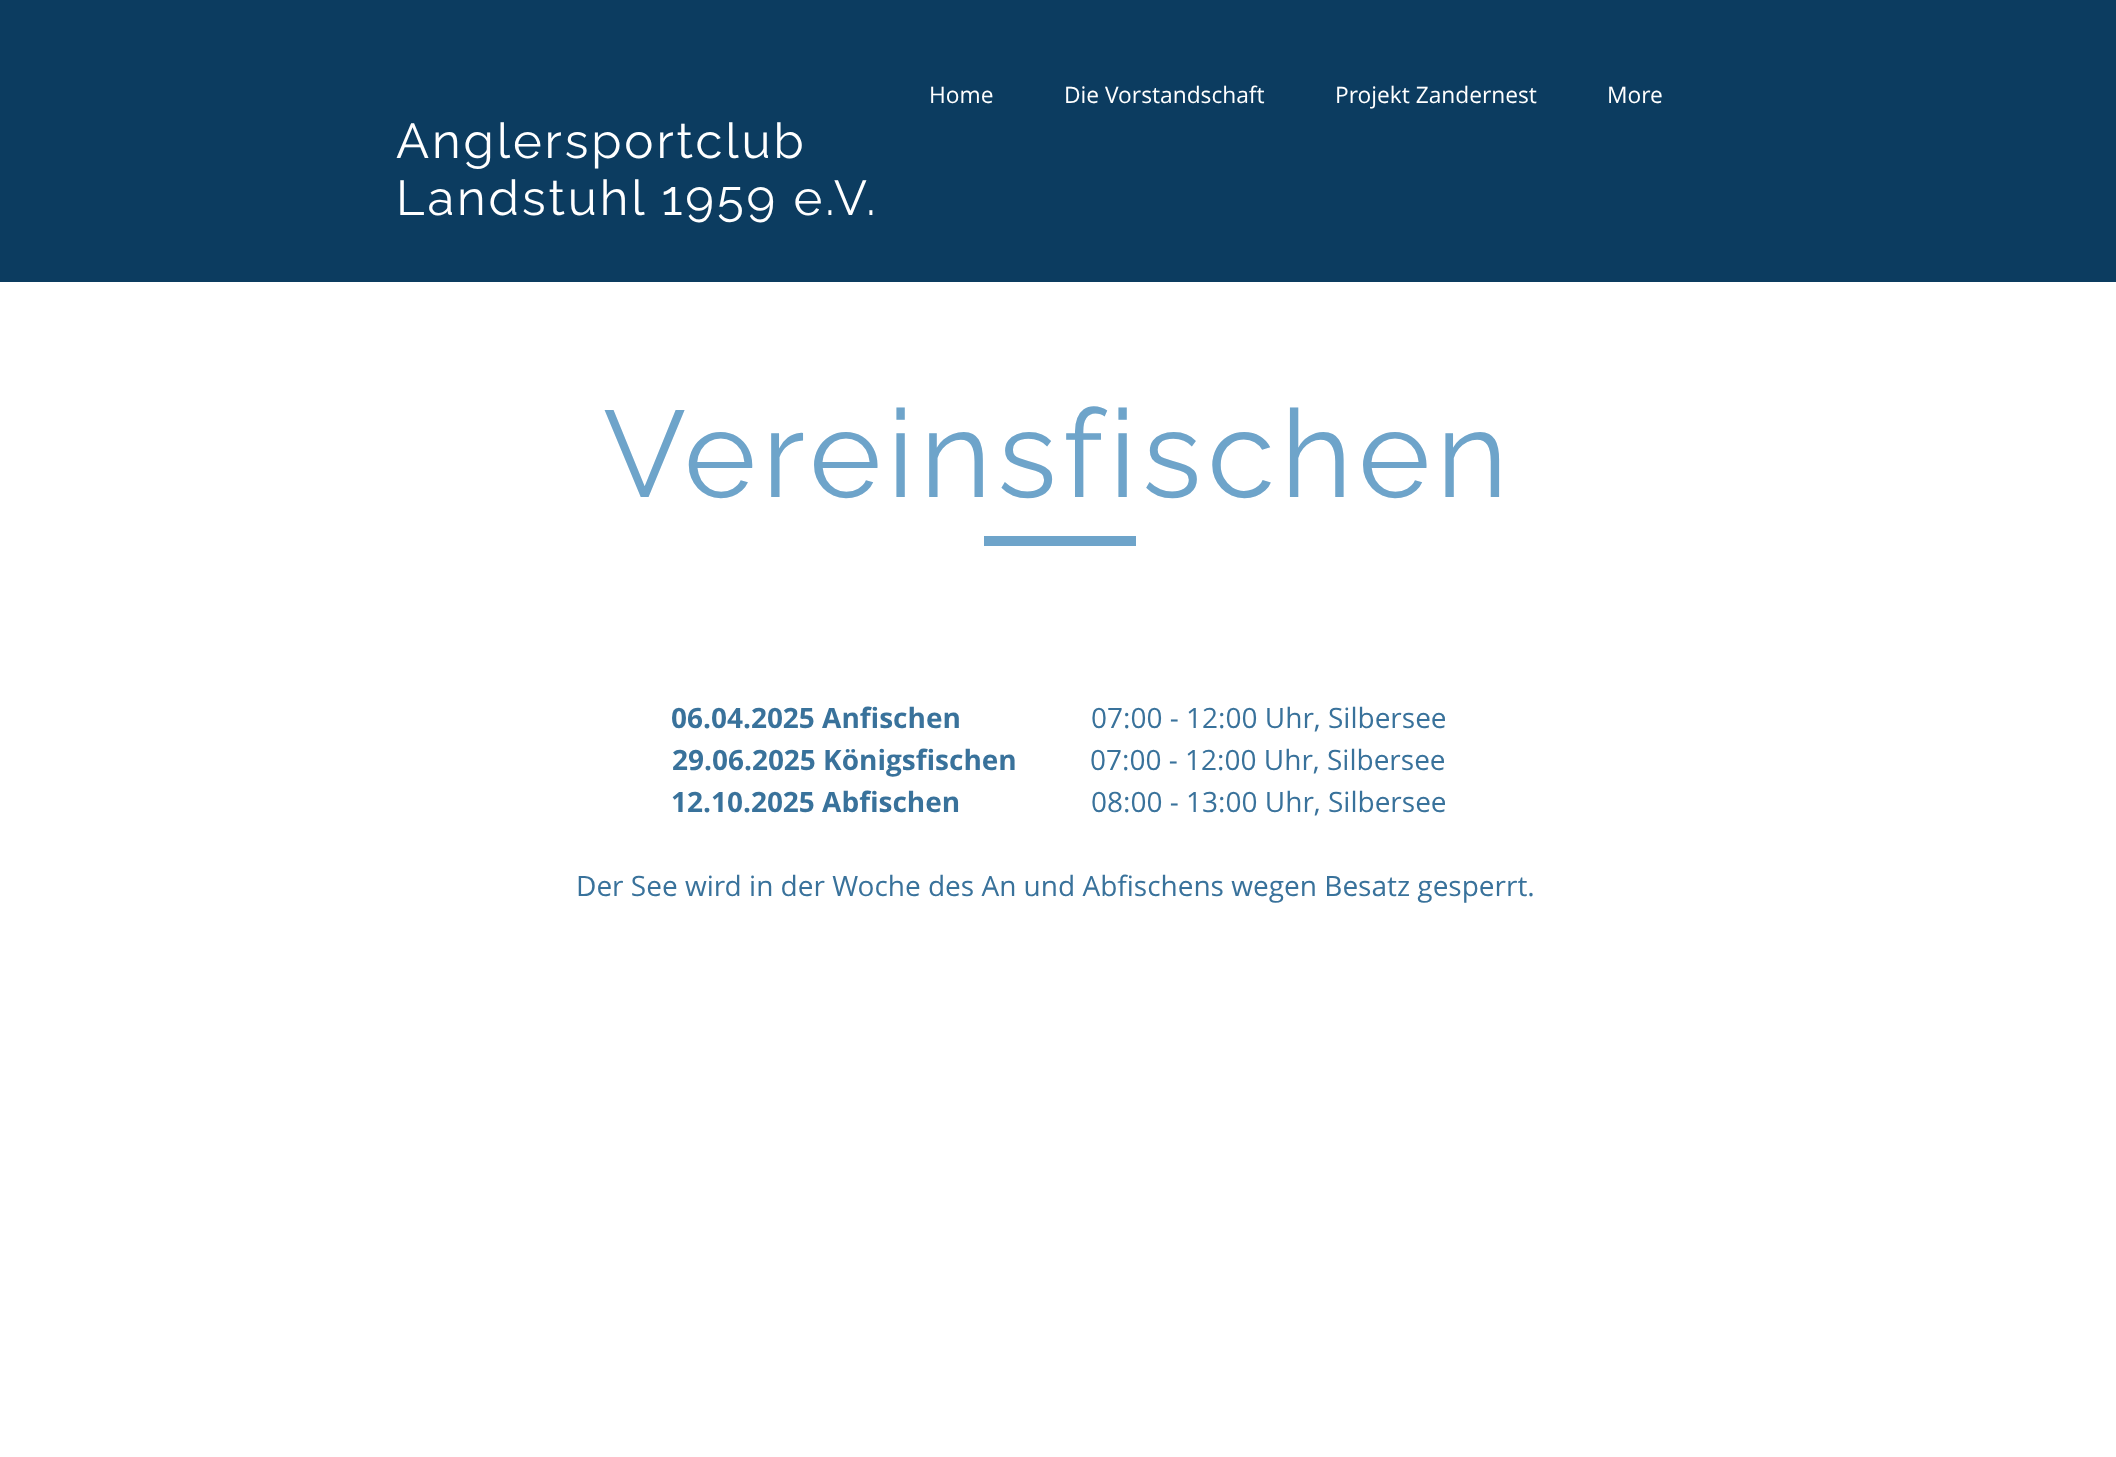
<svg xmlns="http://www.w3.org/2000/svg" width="2116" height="1457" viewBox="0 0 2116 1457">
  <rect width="100%" height="100%" fill="rgb(255,255,255)"/>
  <rect x="0" y="0" width="2116" height="282" fill="rgb(12,60,96)"/>
  <g font-family="Open Sans" font-size="22.75" fill="rgb(255,255,255)">
    <text x="929" y="103">Home</text>
    <text x="1064" y="103">Die Vorstandschaft</text>
    <text x="1335" y="103">Projekt Zandernest</text>
    <text x="1607" y="103">More</text>
  </g>
  <g font-family="Raleway" font-size="49" letter-spacing="2.9" fill="rgb(255,255,255)">
    <text>
      <tspan x="396" y="158">Anglersportclub</tspan>
      <tspan x="396" y="215">Landstuhl 1959 e.V.</tspan>
    </text>
  </g>
  <text x="603" y="497" font-family="Raleway" font-size="122.5" letter-spacing="6.1" fill="rgb(110,164,202)">Vereinsfischen</text>
  <rect x="984" y="536" width="152" height="10" fill="rgb(110,164,202)"/>
  <text x="671" y="728" font-family="Open Sans" font-size="28" font-weight="bold" fill="rgb(57,114,155)">06.04.2025 Anfischen</text>
  <text x="1091" y="728" font-family="Open Sans" font-size="28" fill="rgb(57,114,155)">07:00 - 12:00 Uhr, Silbersee</text>
  <text x="672" y="770" font-family="Open Sans" font-size="28" font-weight="bold" fill="rgb(57,114,155)">29.06.2025 Königsfischen</text>
  <text x="1090" y="770" font-family="Open Sans" font-size="28" fill="rgb(57,114,155)">07:00 - 12:00 Uhr, Silbersee</text>
  <text x="671" y="812" font-family="Open Sans" font-size="28" font-weight="bold" fill="rgb(57,114,155)">12.10.2025 Abfischen</text>
  <g font-family="Open Sans" font-size="28" fill="rgb(57,114,155)">
    <text x="1091" y="812">08:00 - 13:00 Uhr, Silbersee</text>
    <text x="576" y="896">Der See wird in der Woche des An und Abfischens wegen Besatz gesperrt.</text>
  </g>
</svg>
